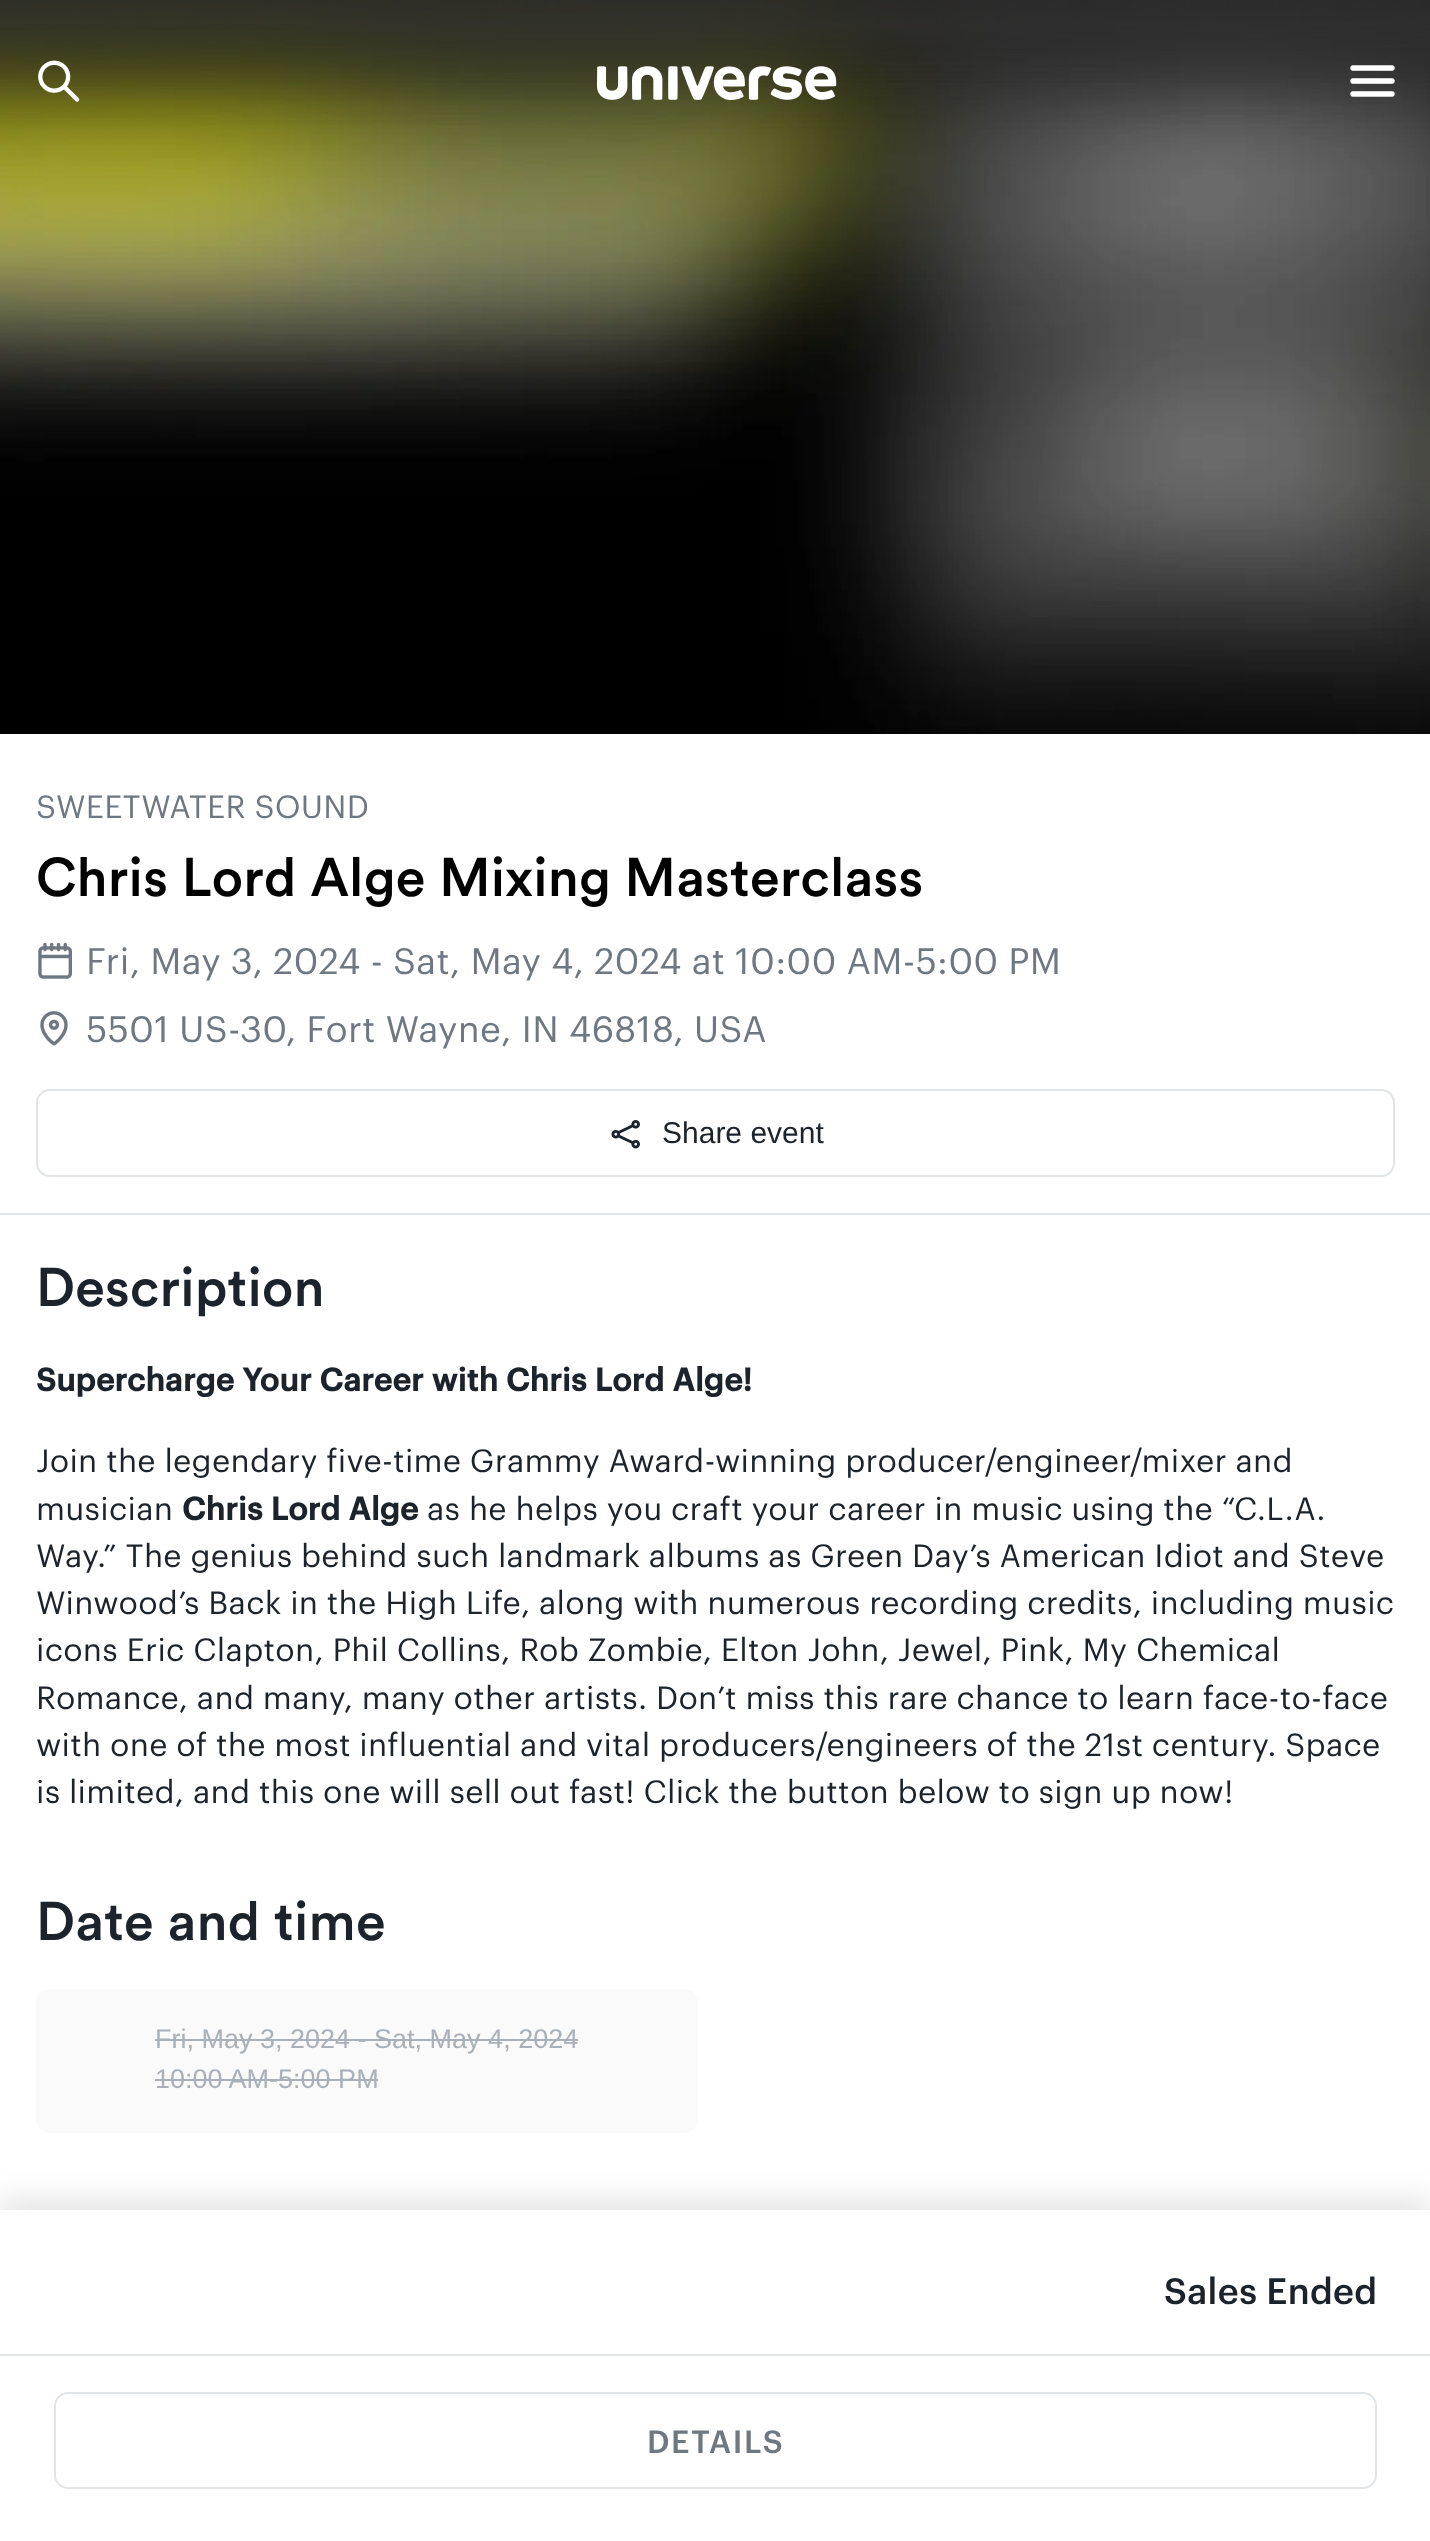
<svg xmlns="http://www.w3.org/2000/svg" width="1430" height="2541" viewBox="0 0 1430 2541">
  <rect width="100%" height="100%" fill="rgb(255,255,255)"/>
  <image x="0" y="0" width="1430" height="734" href="pic4.png"/>
  <image x="38" y="60" width="42" height="42" href="pic1.png"/>
  <image x="597" y="66" width="240" height="34" href="pic2.png"/>
  <image x="1350" y="65" width="45" height="32" href="pic3.png"/>
  <text x="36" y="818" font-family="Graphik" font-size="31.5" letter-spacing="0.23" fill="rgb(111,120,129)">SWEETWATER SOUND</text>
  <text x="36" y="896" font-family="Circular" font-size="54" font-weight="500" letter-spacing="0.23" fill="rgb(0,0,0)">Chris Lord Alge Mixing Masterclass</text>
  <image x="38" y="943" width="34" height="36" href="pic5.png"/>
  <text x="86" y="974" font-family="Graphik" font-size="36" letter-spacing="0.23" fill="rgb(111,120,129)">Fri, May 3, 2024 - Sat, May 4, 2024 at 10:00 AM-5:00 PM</text>
  <image x="40" y="1011" width="28" height="35" href="pic6.png"/>
  <text x="86" y="1042" font-family="Graphik" font-size="36" letter-spacing="0.23" fill="rgb(111,120,129)">5501 US-30, Fort Wayne, IN 46818, USA</text>
  <rect x="37" y="1090" width="1357" height="86" rx="13" fill="none" stroke="rgb(226,229,231)" stroke-width="2"/>
  <image x="611" y="1120" width="29" height="29" href="pic7.png"/>
  <text x="662" y="1143" font-family="Liberation Sans" font-size="30" fill="rgb(28,35,43)">Share event</text>
  <rect x="0" y="1213" width="1430" height="2" fill="rgb(226,229,231)"/>
  <text x="36" y="1306" font-family="Circular" font-size="54" font-weight="500" letter-spacing="0.23" fill="rgb(28,35,43)">Description</text>
  <text x="36" y="1391" font-family="Graphik" font-size="31.5" font-weight="bold" letter-spacing="0.23" fill="rgb(28,35,43)">Supercharge Your Career with Chris Lord Alge!</text>
  <g font-family="Graphik" font-size="31.5" letter-spacing="0.23" fill="rgb(28,35,43)">
    <text>
      <tspan x="36" y="1472">Join the legendary five-time Grammy Award-winning producer/engineer/mixer and</tspan>
      <tspan x="36" y="1520">musician</tspan>
    </text>
  </g>
  <text x="182" y="1520" font-family="Graphik" font-size="31.5" font-weight="bold" letter-spacing="0.23" fill="rgb(28,35,43)">Chris Lord Alge</text>
  <g font-family="Graphik" font-size="31.5" letter-spacing="0.23" fill="rgb(28,35,43)">
    <text x="427" y="1520">as he helps you craft your career in music using the “C.L.A.</text>
    <text>
      <tspan x="36" y="1567">Way.” The genius behind such landmark albums as Green Day’s American Idiot and Steve</tspan>
      <tspan x="36" y="1614">Winwood’s Back in the High Life, along with numerous recording credits, including music</tspan>
      <tspan x="36" y="1661">icons Eric Clapton, Phil Collins, Rob Zombie, Elton John, Jewel, Pink, My Chemical</tspan>
      <tspan x="36" y="1709">Romance, and many, many other artists. Don’t miss this rare chance to learn face-to-face</tspan>
      <tspan x="36" y="1756">with one of the most influential and vital producers/engineers of the 21st century. Space</tspan>
      <tspan x="36" y="1803">is limited, and this one will sell out fast! Click the button below to sign up now!</tspan>
    </text>
  </g>
  <text x="36" y="1940" font-family="Circular" font-size="54" font-weight="500" letter-spacing="0.23" fill="rgb(28,35,43)">Date and time</text>
  <rect x="36" y="1989" width="662" height="144" rx="14" fill="rgb(250,250,250)"/>
  <text x="155" y="2048" font-family="Liberation Sans" font-size="27" fill="rgb(169,176,183)">Fri, May 3, 2024 - Sat, May 4, 2024</text>
  <rect x="155" y="2039" width="423" height="2" fill="rgb(169,176,183)"/>
  <text x="155" y="2088" font-family="Liberation Sans" font-size="27" fill="rgb(169,176,183)">10:00 AM-5:00 PM</text>
  <rect x="155" y="2079" width="223" height="2" fill="rgb(169,176,183)"/>
  <rect x="0" y="2198" width="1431" height="333" fill="rgba(0,0,0,0.1)" filter="blur(14.5px)"/>
  <rect x="0" y="2210" width="1430" height="331" fill="rgb(255,255,255)"/>
  <text x="1164" y="2304" font-family="Graphik" font-size="36" font-weight="500" letter-spacing="0.23" fill="rgb(28,35,43)">Sales Ended</text>
  <rect x="0" y="2354" width="1430" height="2" fill="rgb(226,229,231)"/>
  <rect x="55" y="2393" width="1321" height="95" rx="13" fill="none" stroke="rgb(226,229,231)" stroke-width="2"/>
  <text x="647" y="2453" font-family="Graphik" font-size="31.5" font-weight="500" letter-spacing="1.5" fill="rgb(111,120,129)">DETAILS</text>
</svg>
